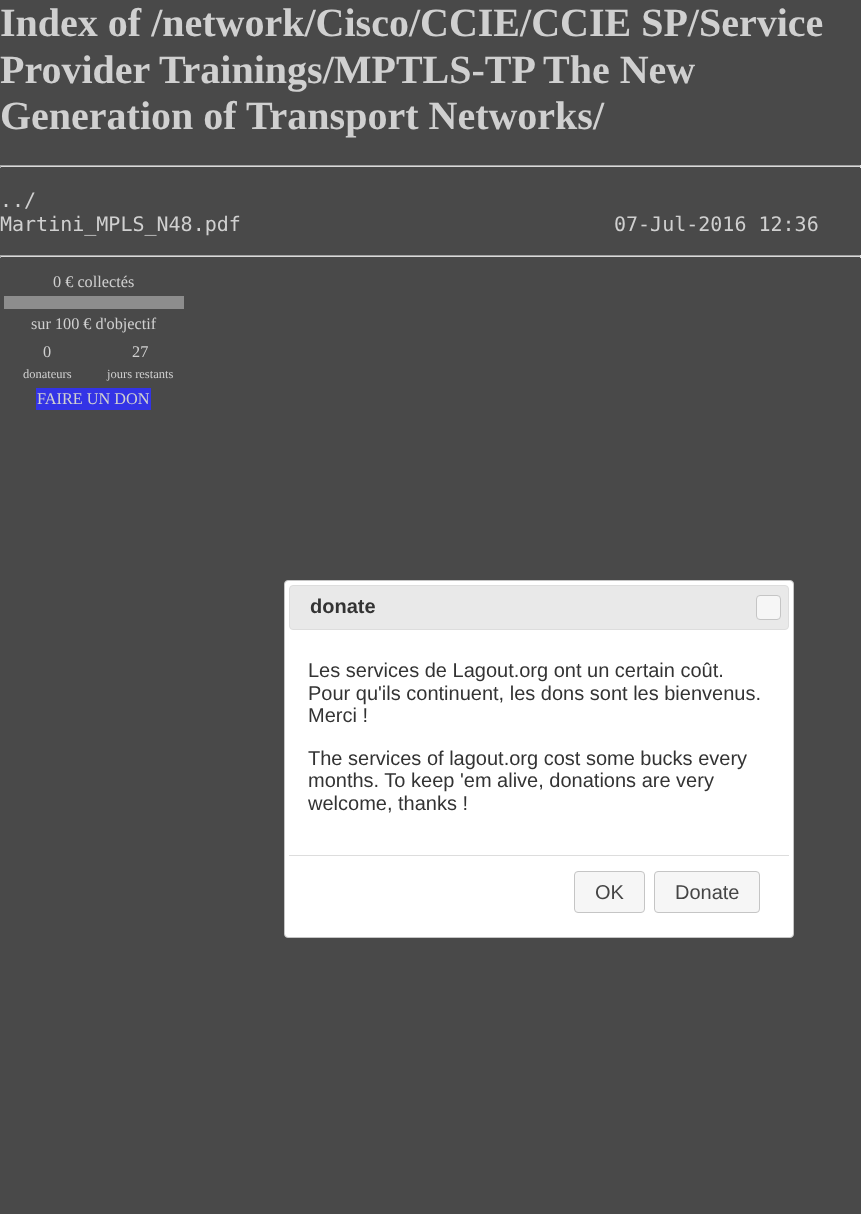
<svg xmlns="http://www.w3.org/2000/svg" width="861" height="1214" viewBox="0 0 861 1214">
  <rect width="100%" height="100%" fill="rgb(73,73,73)"/>
  <g font-family="Liberation Serif" font-size="40" font-weight="bold" fill="rgb(208,208,208)">
    <text>
      <tspan x="0" y="36">Index of /network/Cisco/CCIE/CCIE SP/Service</tspan>
      <tspan x="0" y="83">Provider Trainings/MPTLS-TP The New</tspan>
      <tspan x="0" y="129">Generation of Transport Networks/</tspan>
    </text>
  </g>
  <rect x="0" y="165" width="861" height="1" fill="rgb(162,162,162)"/>
  <rect x="860" y="165" width="1" height="3" fill="rgb(218,218,218)"/>
  <rect x="0" y="166" width="861" height="1" fill="rgb(218,218,218)"/>
  <rect x="0" y="165" width="1" height="3" fill="rgb(162,162,162)"/>
  <g font-family="DejaVu Sans Mono" font-size="20" fill="rgb(208,208,208)">
    <text>
      <tspan x="0" y="207">../</tspan>
      <tspan x="0" y="231">Martini_MPLS_N48.pdf</tspan>
    </text>
    <text x="614" y="231">07-Jul-2016 12:36</text>
  </g>
  <rect x="0" y="255" width="861" height="1" fill="rgb(162,162,162)"/>
  <rect x="860" y="255" width="1" height="3" fill="rgb(218,218,218)"/>
  <rect x="0" y="256" width="861" height="1" fill="rgb(218,218,218)"/>
  <rect x="0" y="255" width="1" height="3" fill="rgb(162,162,162)"/>
  <text x="53" y="287" font-family="Liberation Serif" font-size="16.25" fill="rgb(208,208,208)">0 € collectés</text>
  <rect x="4" y="296" width="180" height="13" fill="rgb(141,141,141)"/>
  <g font-family="Liberation Serif" font-size="16.25" fill="rgb(208,208,208)">
    <text x="31" y="329">sur 100 € d'objectif</text>
    <text x="43" y="357">0</text>
    <text x="132" y="357">27</text>
  </g>
  <g font-family="Liberation Serif" font-size="12.5" fill="rgb(208,208,208)">
    <text x="23" y="378">donateurs</text>
    <text x="107" y="378">jours restants</text>
  </g>
  <rect x="36" y="388" width="115" height="22" fill="rgb(51,51,230)"/>
  <text x="37" y="404" font-family="Liberation Serif" font-size="16.25" fill="rgb(208,208,208)">FAIRE UN DON</text>
  <rect x="284.5" y="580.5" width="509" height="357" rx="3.5" fill="rgb(255,255,255)" stroke="rgb(197,197,197)"/>
  <rect x="289.5" y="585.5" width="499" height="44" rx="3.5" fill="rgb(233,233,233)" stroke="rgb(221,221,221)"/>
  <text x="310" y="613" font-family="Liberation Sans" font-size="20" font-weight="bold" fill="rgb(51,51,51)">donate</text>
  <rect x="756.5" y="595.5" width="24" height="24" rx="3.5" fill="rgb(246,246,246)" stroke="rgb(197,197,197)"/>
  <g font-family="Liberation Sans" font-size="20" fill="rgb(51,51,51)">
    <text>
      <tspan x="308" y="677">Les services de Lagout.org ont un certain coût.</tspan>
      <tspan x="308" y="700">Pour qu'ils continuent, les dons sont les bienvenus.</tspan>
      <tspan x="308" y="722">Merci !</tspan>
    </text>
    <text>
      <tspan x="308" y="765">The services of lagout.org cost some bucks every</tspan>
      <tspan x="308" y="787">months. To keep 'em alive, donations are very</tspan>
      <tspan x="308" y="810">welcome, thanks !</tspan>
    </text>
  </g>
  <rect x="289" y="855" width="500" height="1" fill="rgb(221,221,221)"/>
  <rect x="574.5" y="871.5" width="70" height="41" rx="3.5" fill="rgb(246,246,246)" stroke="rgb(197,197,197)"/>
  <text x="595" y="899" font-family="Liberation Sans" font-size="20" fill="rgb(69,69,69)">OK</text>
  <rect x="654.5" y="871.5" width="105" height="41" rx="3.5" fill="rgb(246,246,246)" stroke="rgb(197,197,197)"/>
  <text x="675" y="899" font-family="Liberation Sans" font-size="20" fill="rgb(69,69,69)">Donate</text>
</svg>
